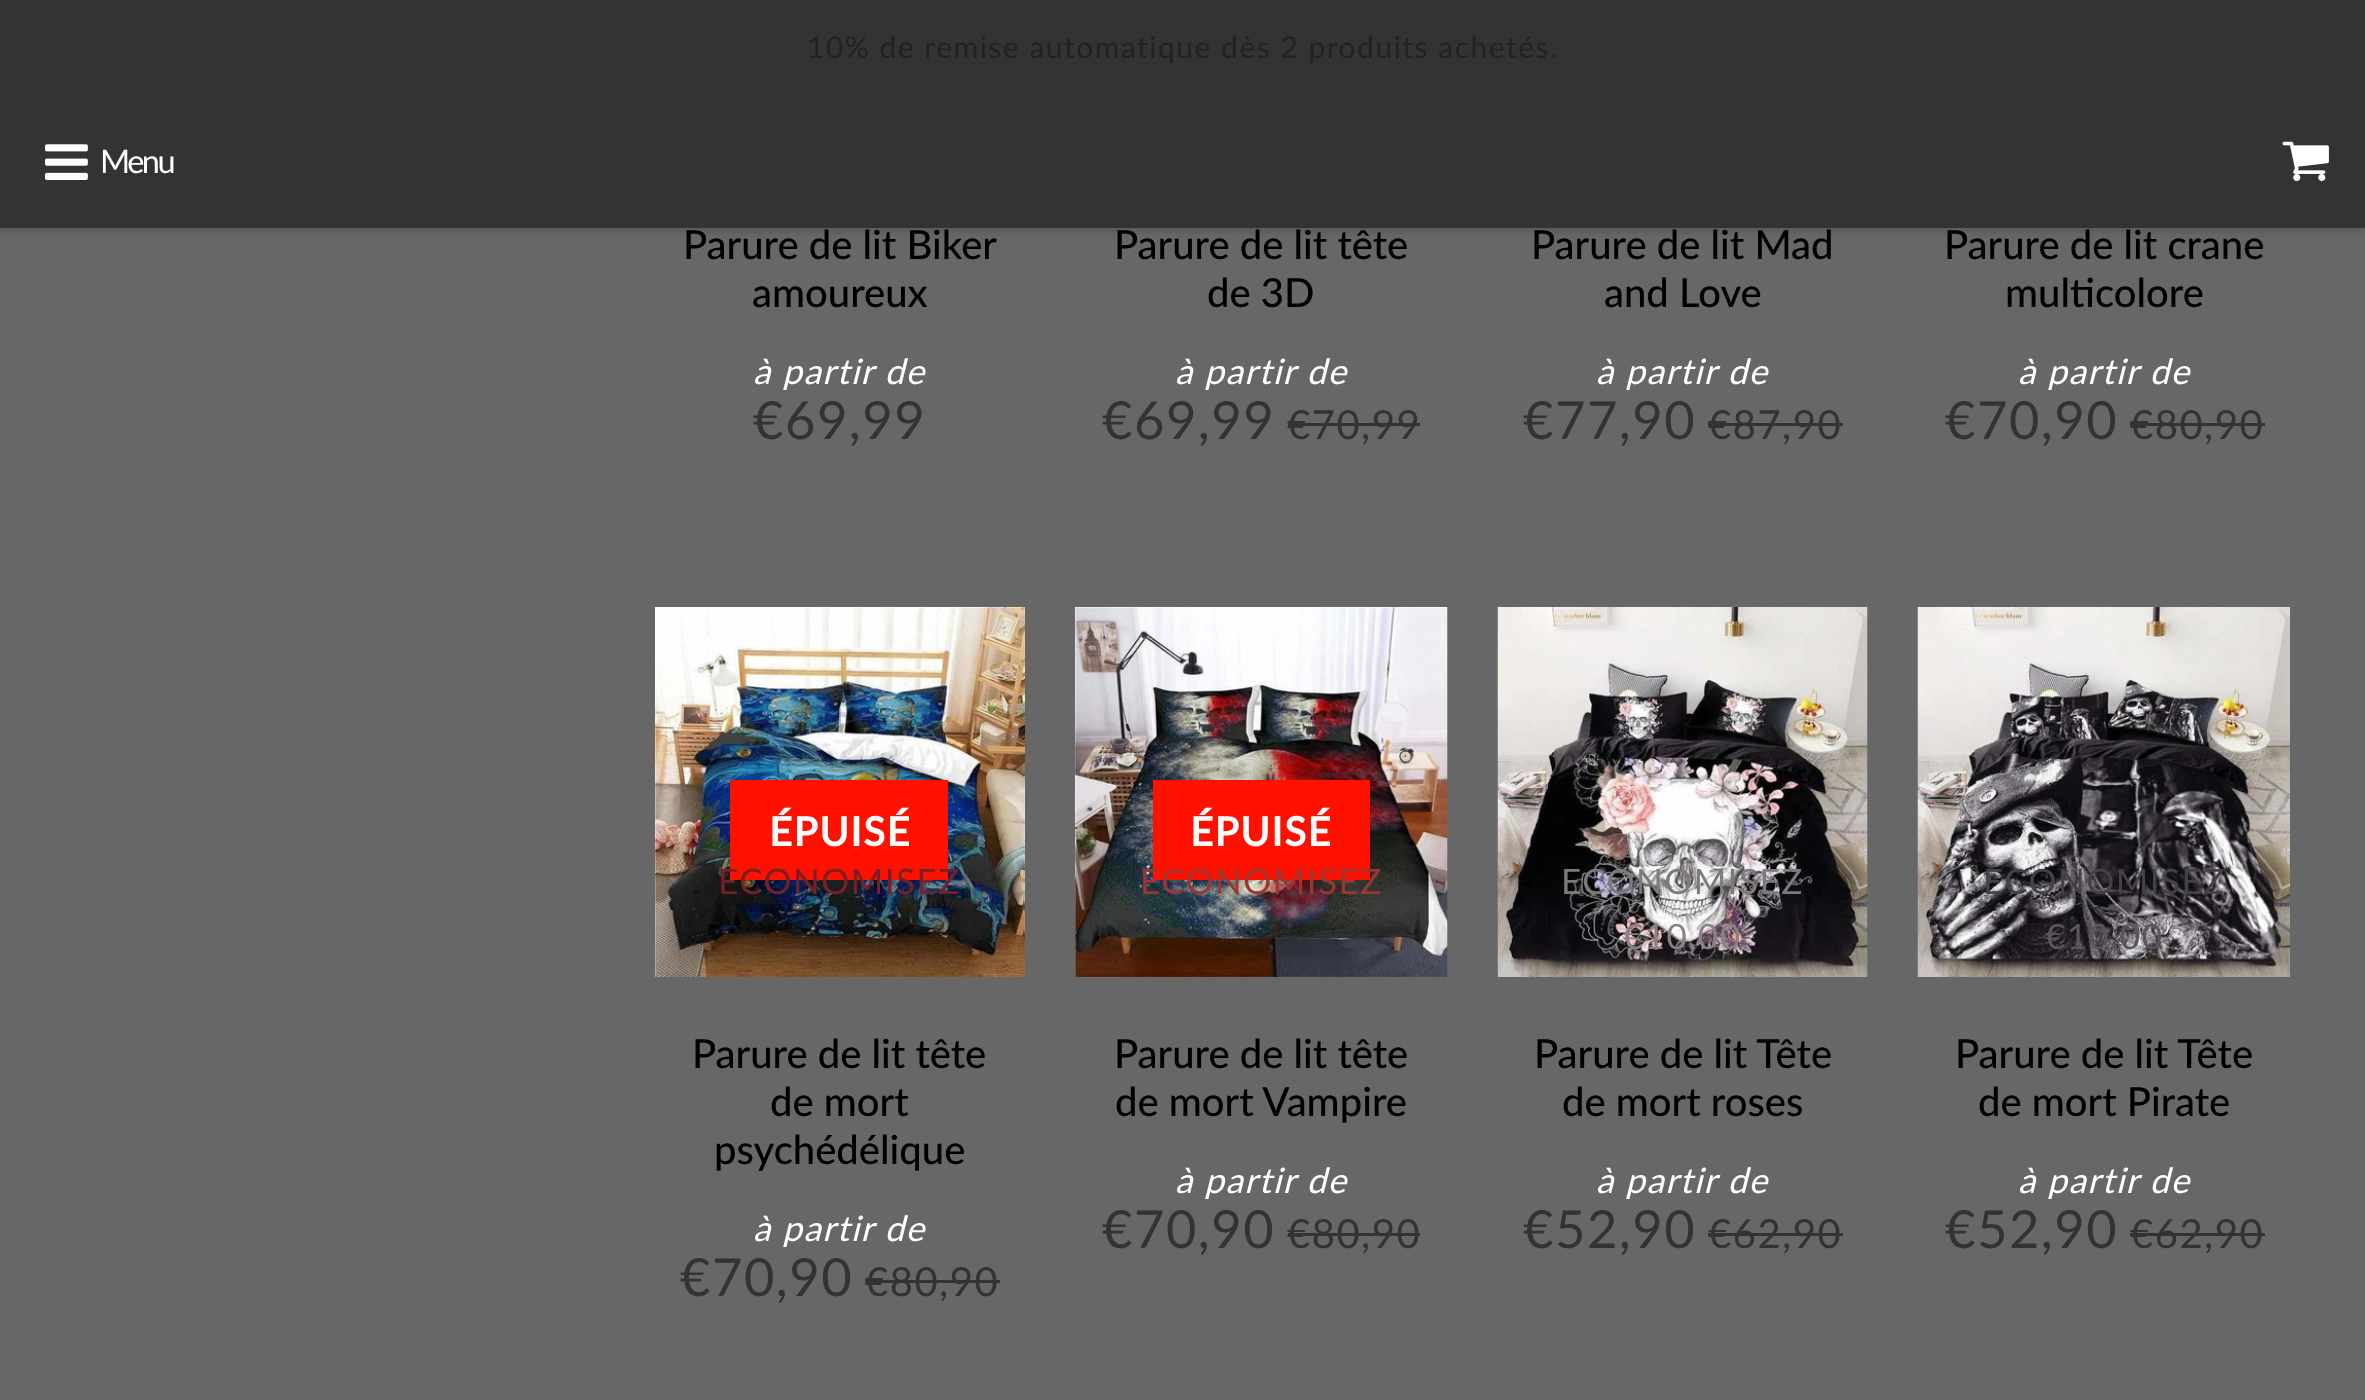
<svg xmlns="http://www.w3.org/2000/svg" width="2365" height="1400" viewBox="0 0 2365 1400">
  <rect width="100%" height="100%" fill="rgb(103,103,103)"/>
  <rect x="0" y="0" width="2365" height="93" fill="rgb(51,51,51)"/>
  <text x="807" y="58" font-family="Lato" font-size="30" letter-spacing="1.5" fill="rgb(34,34,34)">10% de remise automatique dès 2 produits achetés.</text>
  <rect x="0" y="98" width="2365" height="135" fill="rgba(0,0,0,0.1)" filter="blur(2.5px)"/>
  <rect x="0" y="93" width="2365" height="135" fill="rgb(51,51,51)"/>
  <image x="45" y="144" width="43" height="36" href="pic1.png"/>
  <text x="100" y="173" font-family="Lato" font-size="32.5" letter-spacing="-2.5" fill="rgb(255,255,255)">Menu</text>
  <image x="2282" y="141" width="47" height="41" href="pic2.png"/>
  <g font-family="Lato" font-size="40" font-weight="500" fill="rgb(0,0,0)">
    <text x="683" y="259">Parure de lit Biker</text>
    <text x="752" y="307">amoureux</text>
  </g>
  <text x="753" y="384" font-family="Lato" font-size="35" font-style="italic" letter-spacing="1.5" fill="rgb(255,255,255)">à partir de</text>
  <text x="753" y="439" font-family="Lato" font-size="52.5" letter-spacing="1.5" fill="rgb(51,51,51)">€69,99</text>
  <g font-family="Lato" font-size="40" font-weight="500" fill="rgb(0,0,0)">
    <text x="1114" y="259">Parure de lit tête</text>
    <text x="1207" y="307">de 3D</text>
  </g>
  <text x="1175" y="384" font-family="Lato" font-size="35" font-style="italic" letter-spacing="1.5" fill="rgb(255,255,255)">à partir de</text>
  <text x="1102" y="439" font-family="Lato" font-size="52.5" letter-spacing="1.5" fill="rgb(51,51,51)">€69,99</text>
  <text x="1287" y="439" font-family="Lato" font-size="40" letter-spacing="1.5" fill="rgb(51,51,51)">€70,99</text>
  <rect x="1288" y="423" width="132" height="3" fill="rgb(51,51,51)"/>
  <g font-family="Lato" font-size="40" font-weight="500" fill="rgb(0,0,0)">
    <text x="1531" y="259">Parure de lit Mad</text>
    <text x="1604" y="307">and Love</text>
  </g>
  <text x="1596" y="384" font-family="Lato" font-size="35" font-style="italic" letter-spacing="1.5" fill="rgb(255,255,255)">à partir de</text>
  <text x="1523" y="439" font-family="Lato" font-size="52.5" letter-spacing="1.5" fill="rgb(51,51,51)">€77,90</text>
  <text x="1708" y="439" font-family="Lato" font-size="40" letter-spacing="1.5" fill="rgb(51,51,51)">€87,90</text>
  <rect x="1708" y="423" width="135" height="3" fill="rgb(51,51,51)"/>
  <g font-family="Lato" font-size="40" font-weight="500" fill="rgb(0,0,0)">
    <text x="1944" y="259">Parure de lit crane</text>
    <text x="2005" y="307">multicolore</text>
  </g>
  <text x="2018" y="384" font-family="Lato" font-size="35" font-style="italic" letter-spacing="1.5" fill="rgb(255,255,255)">à partir de</text>
  <text x="1945" y="439" font-family="Lato" font-size="52.5" letter-spacing="1.5" fill="rgb(51,51,51)">€70,90</text>
  <text x="2130" y="439" font-family="Lato" font-size="40" letter-spacing="1.5" fill="rgb(51,51,51)">€80,90</text>
  <rect x="2130" y="423" width="135" height="3" fill="rgb(51,51,51)"/>
  <image x="655" y="607" width="370" height="370" href="pic3.png"/>
  <rect x="730" y="780" width="218" height="100" fill="rgb(255,17,0)"/>
  <text x="769" y="846" font-family="Lato" font-size="40" font-weight="bold" letter-spacing="1.5" fill="rgb(255,255,255)">ÉPUISÉ</text>
  <text x="718" y="894" font-family="Lato" font-size="35" letter-spacing="1.5" fill="rgb(118,32,39)">ECONOMISEZ</text>
  <g font-family="Lato" font-size="40" font-weight="500" fill="rgb(0,0,0)">
    <text x="692" y="1068">Parure de lit tête</text>
    <text x="770" y="1116">de mort</text>
    <text x="714" y="1164">psychédélique</text>
  </g>
  <text x="753" y="1241" font-family="Lato" font-size="35" font-style="italic" letter-spacing="1.5" fill="rgb(255,255,255)">à partir de</text>
  <text x="680" y="1296" font-family="Lato" font-size="52.5" letter-spacing="1.5" fill="rgb(51,51,51)">€70,90</text>
  <text x="865" y="1296" font-family="Lato" font-size="40" letter-spacing="1.5" fill="rgb(51,51,51)">€80,90</text>
  <rect x="865" y="1280" width="135" height="3" fill="rgb(51,51,51)"/>
  <image x="1075" y="607" width="373" height="370" href="pic4.png"/>
  <rect x="1153" y="780" width="217" height="100" fill="rgb(255,17,0)"/>
  <text x="1190" y="846" font-family="Lato" font-size="40" font-weight="bold" letter-spacing="1.5" fill="rgb(255,255,255)">ÉPUISÉ</text>
  <text x="1140" y="894" font-family="Lato" font-size="35" letter-spacing="1.5" fill="rgb(153,56,51)">ECONOMISEZ</text>
  <text x="1267" y="949" font-family="Lato" font-size="35" letter-spacing="1.5" fill="rgb(51,51,51)">,</text>
  <g font-family="Lato" font-size="40" font-weight="500" fill="rgb(0,0,0)">
    <text x="1114" y="1068">Parure de lit tête</text>
    <text x="1115" y="1116">de mort Vampire</text>
  </g>
  <text x="1175" y="1193" font-family="Lato" font-size="35" font-style="italic" letter-spacing="1.5" fill="rgb(255,255,255)">à partir de</text>
  <text x="1102" y="1248" font-family="Lato" font-size="52.5" letter-spacing="1.5" fill="rgb(51,51,51)">€70,90</text>
  <text x="1287" y="1248" font-family="Lato" font-size="40" letter-spacing="1.5" fill="rgb(51,51,51)">€80,90</text>
  <rect x="1288" y="1233" width="132" height="3" fill="rgb(51,51,51)"/>
  <image x="1497" y="607" width="371" height="370" href="pic5.png"/>
  <text x="1561" y="894" font-family="Lato" font-size="35" letter-spacing="1.5" fill="rgb(124,122,126)">ECONOMISEZ</text>
  <text x="1623" y="949" font-family="Lato" font-size="35" letter-spacing="1.5" fill="rgb(142,127,133)">€10,00</text>
  <g font-family="Lato" font-size="40" font-weight="500" fill="rgb(0,0,0)">
    <text x="1534" y="1068">Parure de lit Tête</text>
    <text x="1562" y="1116">de mort roses</text>
  </g>
  <text x="1596" y="1193" font-family="Lato" font-size="35" font-style="italic" letter-spacing="1.5" fill="rgb(255,255,255)">à partir de</text>
  <text x="1523" y="1248" font-family="Lato" font-size="52.5" letter-spacing="1.5" fill="rgb(51,51,51)">€52,90</text>
  <text x="1708" y="1248" font-family="Lato" font-size="40" letter-spacing="1.5" fill="rgb(51,51,51)">€62,90</text>
  <rect x="1708" y="1233" width="135" height="3" fill="rgb(51,51,51)"/>
  <image x="1917" y="607" width="373" height="370" href="pic6.png"/>
  <text x="1983" y="894" font-family="Lato" font-size="35" letter-spacing="1.5" fill="rgb(69,66,71)">ECONOMISEZ</text>
  <text x="2045" y="949" font-family="Lato" font-size="35" letter-spacing="1.5" fill="rgb(90,85,91)">€10,00</text>
  <g font-family="Lato" font-size="40" font-weight="500" fill="rgb(0,0,0)">
    <text x="1955" y="1068">Parure de lit Tête</text>
    <text x="1978" y="1116">de mort Pirate</text>
  </g>
  <text x="2018" y="1193" font-family="Lato" font-size="35" font-style="italic" letter-spacing="1.5" fill="rgb(255,255,255)">à partir de</text>
  <text x="1945" y="1248" font-family="Lato" font-size="52.5" letter-spacing="1.5" fill="rgb(51,51,51)">€52,90</text>
  <text x="2130" y="1248" font-family="Lato" font-size="40" letter-spacing="1.5" fill="rgb(51,51,51)">€62,90</text>
  <rect x="2130" y="1233" width="135" height="3" fill="rgb(51,51,51)"/>
</svg>
